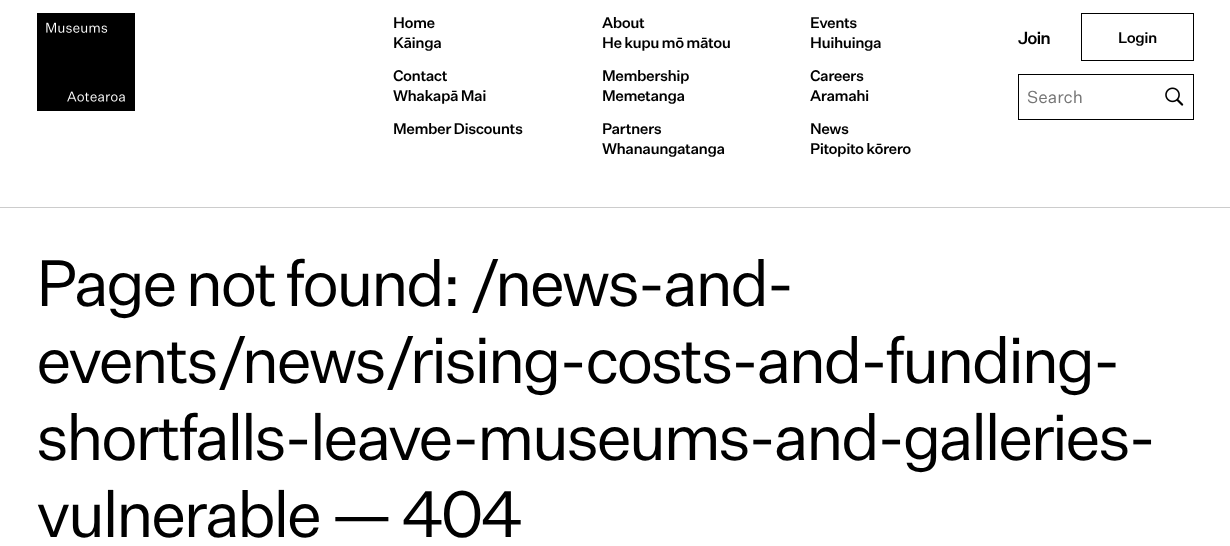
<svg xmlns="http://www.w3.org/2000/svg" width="1230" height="546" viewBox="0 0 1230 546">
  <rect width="100%" height="100%" fill="rgb(255,255,255)"/>
  <rect x="0" y="207" width="1230" height="1" fill="rgb(204,204,204)"/>
  <image x="37" y="13" width="98" height="98" href="pic1.png"/>
  <g font-family="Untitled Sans" font-size="15" font-weight="500" letter-spacing="-0.5" fill="rgb(0,0,0)">
    <text>
      <tspan x="393" y="28">Home</tspan>
      <tspan x="393" y="48">Kāinga</tspan>
    </text>
    <text>
      <tspan x="393" y="81">Contact</tspan>
      <tspan x="393" y="101">Whakapā Mai</tspan>
    </text>
    <text x="393" y="134">Member Discounts</text>
    <text>
      <tspan x="602" y="28">About</tspan>
      <tspan x="602" y="48">He kupu mō mātou</tspan>
    </text>
    <text>
      <tspan x="602" y="81">Membership</tspan>
      <tspan x="602" y="101">Memetanga</tspan>
    </text>
    <text>
      <tspan x="602" y="134">Partners</tspan>
      <tspan x="602" y="154">Whanaungatanga</tspan>
    </text>
    <text>
      <tspan x="810" y="28">Events</tspan>
      <tspan x="810" y="48">Huihuinga</tspan>
    </text>
    <text>
      <tspan x="810" y="81">Careers</tspan>
      <tspan x="810" y="101">Aramahi</tspan>
    </text>
    <text>
      <tspan x="810" y="134">News</tspan>
      <tspan x="810" y="154">Pitopito kōrero</tspan>
    </text>
  </g>
  <text x="1018" y="44" font-family="Untitled Sans" font-size="17" font-weight="500" letter-spacing="-1" fill="rgb(0,0,0)">Join</text>
  <rect x="1081.5" y="13.5" width="112" height="47" fill="none" stroke="rgb(0,0,0)"/>
  <text x="1118" y="43" font-family="Untitled Sans" font-size="15" font-weight="500" letter-spacing="-0.5" fill="rgb(0,0,0)">Login</text>
  <rect x="1018.5" y="74.5" width="175" height="45" fill="none" stroke="rgb(0,0,0)"/>
  <text x="1027" y="103" font-family="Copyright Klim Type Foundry" font-size="17" fill="rgb(117,117,117)">Search</text>
  <image x="1165" y="87" width="19" height="19" href="pic2.png"/>
  <g font-family="Copyright Klim Type Foundry" font-size="64" letter-spacing="-3.2" fill="rgb(0,0,0)">
    <text>
      <tspan x="36" y="306">Page not found: /news-and-</tspan>
      <tspan x="36" y="383">events/news/rising-costs-and-funding-</tspan>
      <tspan x="36" y="460">shortfalls-leave-museums-and-galleries-</tspan>
      <tspan x="36" y="537">vulnerable — 404</tspan>
    </text>
  </g>
</svg>
